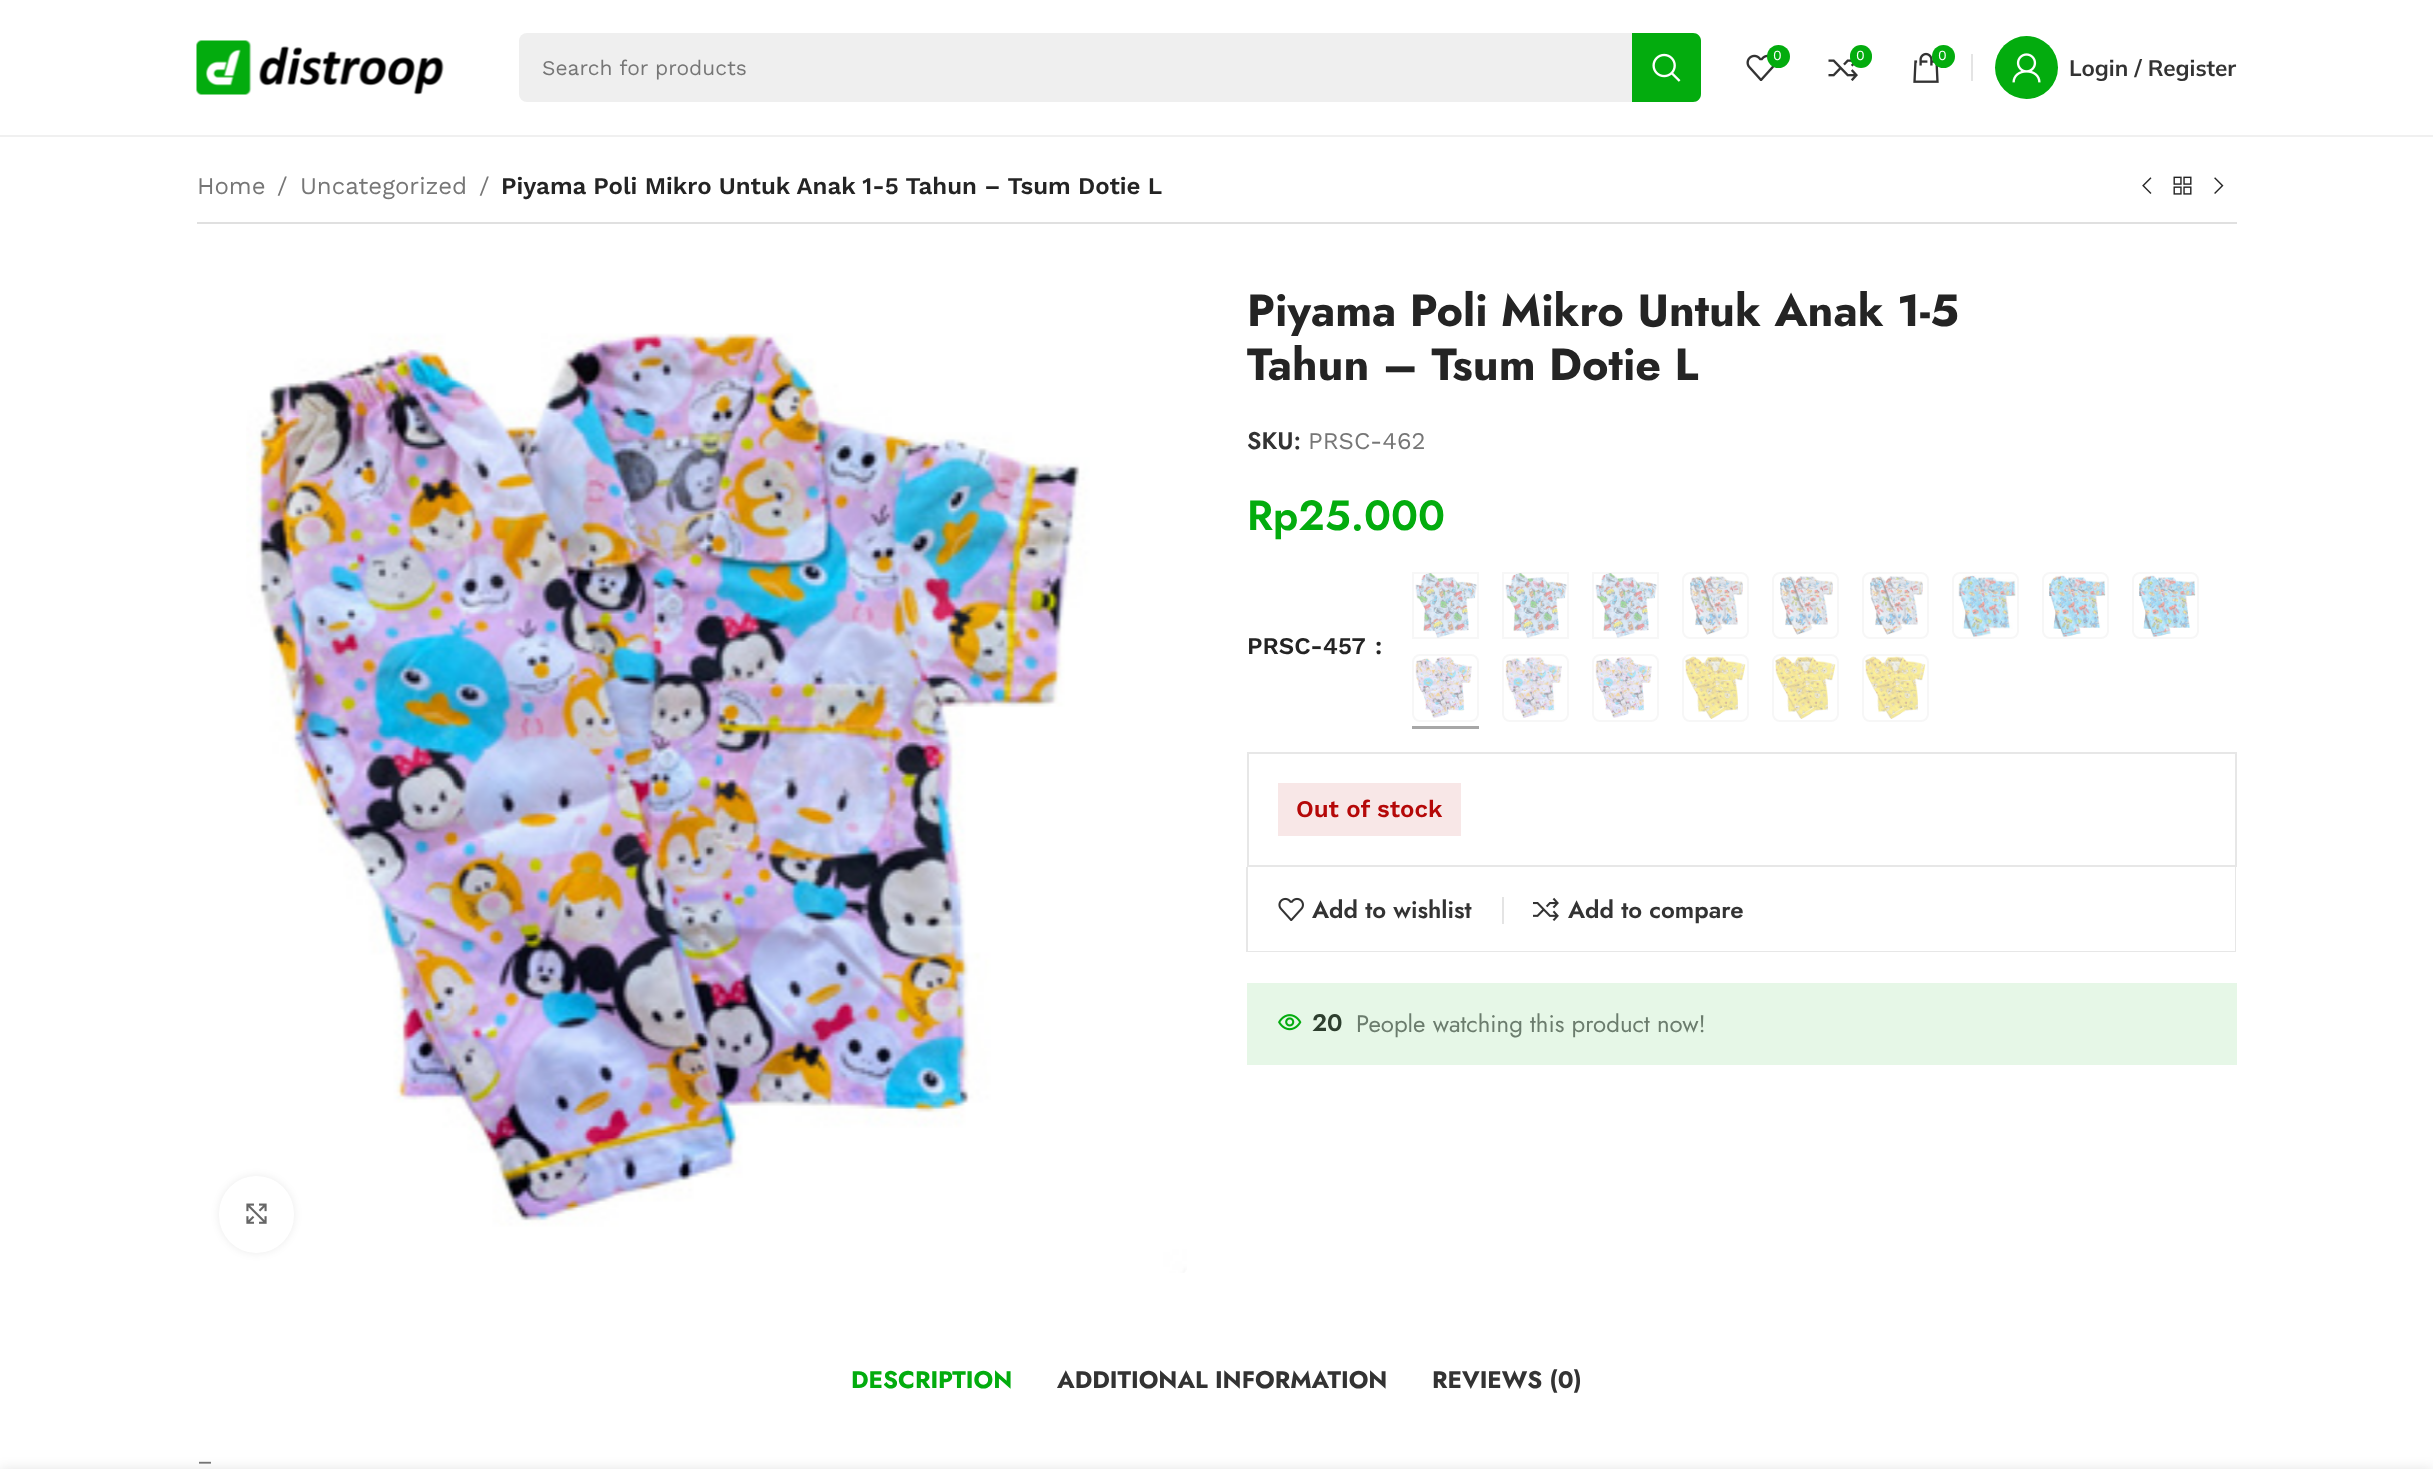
<svg xmlns="http://www.w3.org/2000/svg" width="2433" height="1469" viewBox="0 0 2433 1469">
  <rect width="100%" height="100%" fill="rgb(255,255,255)"/>
  <rect x="1247" y="983" width="990" height="82" fill="rgb(230,247,231)"/>
  <rect x="0" y="135" width="2433" height="2" fill="rgb(240,240,240)"/>
  <image x="196" y="40" width="248" height="55" href="pic1.png"/>
  <rect x="519" y="33" width="1182" height="69" rx="8" fill="rgb(239,239,239)"/>
  <text x="542" y="75" font-family="Work Sans" font-size="21" fill="rgb(118,118,118)">Search for products</text>
  <path d="M1632 33H1693C1697.5 33 1701 36.5 1701 41V94C1701 98.5 1697.5 102 1693 102H1632Z" fill="rgb(3,172,14)"/>
  <image x="1652" y="53" width="29" height="29" href="pic2.png"/>
  <image x="1746" y="54" width="29" height="27" href="pic3.png"/>
  <circle cx="1778.5" cy="56.5" r="11.5" fill="rgb(3,172,14)"/>
  <text x="1773" y="60" font-family="Work Sans" font-size="14" fill="rgb(255,255,255)">0</text>
  <image x="1828" y="59" width="30" height="22" href="pic4.png"/>
  <rect x="1850" y="45" width="22" height="23" rx="11" fill="rgb(3,172,14)"/>
  <text x="1856" y="60" font-family="Work Sans" font-size="14" fill="rgb(255,255,255)">0</text>
  <image x="1913" y="52" width="26" height="31" href="pic5.png"/>
  <circle cx="1943.5" cy="56.5" r="11.5" fill="rgb(3,172,14)"/>
  <text x="1938" y="60" font-family="Work Sans" font-size="14" fill="rgb(255,255,255)">0</text>
  <rect x="1971" y="54" width="2" height="27" fill="rgb(228,228,228)"/>
  <circle cx="2026.5" cy="67.5" r="31.5" fill="rgb(3,172,14)"/>
  <image x="2012" y="53" width="29" height="30" href="pic6.png"/>
  <text x="2069" y="76" font-family="Mulish" font-size="22.5" font-weight="bold" fill="rgb(51,51,51)">Login / Register</text>
  <g font-family="Work Sans" font-size="24" fill="rgb(118,118,118)">
    <text x="197" y="194">Home</text>
    <text x="277" y="194">/</text>
    <text x="300" y="194">Uncategorized</text>
    <text x="479" y="194">/</text>
  </g>
  <text x="501" y="194" font-family="Work Sans" font-size="24" font-weight="600" fill="rgb(36,36,36)">Piyama Poli Mikro Untuk Anak 1-5 Tahun – Tsum Dotie L</text>
  <image x="2142" y="177" width="10" height="17" href="pic7.png"/>
  <image x="2173" y="176" width="19" height="19" href="pic8.png"/>
  <image x="2214" y="177" width="10" height="17" href="pic9.png"/>
  <rect x="197" y="222" width="2040" height="2" fill="rgb(224,224,224)"/>
  <image x="246" y="333" width="941" height="940" href="pic10.png"/>
  <rect x="219" y="1176" width="75" height="77" rx="37.5" fill="rgba(0,0,0,0.08)" filter="blur(4px)"/>
  <rect x="219" y="1176" width="75" height="77" rx="37.5" fill="rgb(255,255,255)"/>
  <image x="246" y="1203" width="21" height="21" href="pic11.png"/>
  <g font-family="Jost" font-size="45" font-weight="bold" fill="rgb(36,36,36)">
    <text>
      <tspan x="1247" y="326">Piyama Poli Mikro Untuk Anak 1-5</tspan>
      <tspan x="1247" y="380">Tahun – Tsum Dotie L</tspan>
    </text>
  </g>
  <text x="1247" y="449" font-family="Jost" font-size="24" font-weight="600" fill="rgb(51,51,51)">SKU:</text>
  <text x="1308" y="449" font-family="Work Sans" font-size="24" fill="rgb(118,118,118)">PRSC-462</text>
  <text x="1247" y="530" font-family="Jost" font-size="42" font-weight="600" fill="rgb(3,172,14)">Rp25.000</text>
  <g font-family="Work Sans" font-size="24" font-weight="600" fill="rgb(36,36,36)">
    <text x="1247" y="654">PRSC-457</text>
    <text x="1375" y="654">:</text>
  </g>
  <image x="1415" y="573" width="62" height="65" href="pic12.png"/>
  <rect x="1413" y="573" width="65" height="65" fill="none" stroke="rgba(0,0,0,0.03)" stroke-width="2"/>
  <image x="1505" y="573" width="62" height="65" href="pic13.png"/>
  <rect x="1503" y="573" width="65" height="65" fill="none" stroke="rgba(0,0,0,0.03)" stroke-width="2"/>
  <image x="1595" y="573" width="62" height="65" href="pic14.png"/>
  <rect x="1593" y="573" width="65" height="65" fill="none" stroke="rgba(0,0,0,0.03)" stroke-width="2"/>
  <image x="1690" y="576" width="53" height="59" href="pic15.png"/>
  <rect x="1683" y="573" width="65" height="65" rx="7" fill="none" stroke="rgb(247,247,247)" stroke-width="2"/>
  <image x="1780" y="576" width="53" height="59" href="pic15.png"/>
  <rect x="1773" y="573" width="65" height="65" rx="7" fill="none" stroke="rgb(247,247,247)" stroke-width="2"/>
  <image x="1870" y="576" width="53" height="59" href="pic15.png"/>
  <rect x="1863" y="573" width="65" height="65" rx="7" fill="none" stroke="rgb(247,247,247)" stroke-width="2"/>
  <image x="1958" y="575" width="58" height="62" href="pic16.png"/>
  <rect x="1953" y="573" width="65" height="65" rx="7" fill="none" stroke="rgb(247,247,247)" stroke-width="2"/>
  <image x="2049" y="575" width="57" height="62" href="pic17.png"/>
  <rect x="2043" y="573" width="65" height="65" rx="7" fill="none" stroke="rgb(247,247,247)" stroke-width="2"/>
  <image x="2139" y="575" width="57" height="62" href="pic18.png"/>
  <rect x="2133" y="573" width="65" height="65" rx="7" fill="none" stroke="rgb(247,247,247)" stroke-width="2"/>
  <image x="1415" y="657" width="57" height="61" href="pic19.png"/>
  <rect x="1413" y="655" width="65" height="66" rx="7" fill="none" stroke="rgb(247,247,247)" stroke-width="2"/>
  <rect x="1412" y="726" width="67" height="3" fill="rgb(167,167,167)"/>
  <image x="1505" y="657" width="57" height="61" href="pic20.png"/>
  <rect x="1503" y="655" width="65" height="66" rx="7" fill="none" stroke="rgb(247,247,247)" stroke-width="2"/>
  <image x="1595" y="657" width="57" height="61" href="pic21.png"/>
  <rect x="1593" y="655" width="65" height="66" rx="7" fill="none" stroke="rgb(247,247,247)" stroke-width="2"/>
  <image x="1685" y="656" width="61" height="63" href="pic22.png"/>
  <rect x="1683" y="655" width="65" height="66" rx="7" fill="none" stroke="rgb(247,247,247)" stroke-width="2"/>
  <image x="1775" y="656" width="61" height="63" href="pic22.png"/>
  <rect x="1773" y="655" width="65" height="66" rx="7" fill="none" stroke="rgb(247,247,247)" stroke-width="2"/>
  <image x="1865" y="656" width="61" height="63" href="pic22.png"/>
  <rect x="1863" y="655" width="65" height="66" rx="7" fill="none" stroke="rgb(247,247,247)" stroke-width="2"/>
  <rect x="1248" y="753" width="988" height="113" fill="none" stroke="rgb(231,231,231)" stroke-width="2"/>
  <rect x="1278" y="783" width="183" height="53" fill="rgb(248,231,231)"/>
  <text x="1296" y="817" font-family="Work Sans" font-size="24" font-weight="600" fill="rgb(181,8,8)">Out of stock</text>
  <path d="M2236 867V952L2235 951V867Z" fill="rgb(231,231,231)"/>
  <path d="M2236 952H1246L1248 951H2235Z" fill="rgba(16,16,16,0.1)"/>
  <path d="M1246 952V867H1248V951Z" fill="rgba(16,16,16,0.1)"/>
  <rect x="1502" y="897" width="2" height="27" fill="rgb(228,228,228)"/>
  <image x="1278" y="897" width="26" height="24" href="pic23.png"/>
  <text x="1312" y="918" font-family="Jost" font-size="24" font-weight="600" fill="rgb(51,51,51)">Add to wishlist</text>
  <image x="1533" y="897" width="26" height="24" href="pic24.png"/>
  <text x="1568" y="918" font-family="Jost" font-size="24" font-weight="600" fill="rgb(51,51,51)">Add to compare</text>
  <image x="1278" y="1014" width="24" height="17" href="pic25.png"/>
  <text x="1312" y="1031" font-family="Jost" font-size="24" font-weight="600" fill="rgb(46,63,47)">20</text>
  <text x="1356" y="1032" font-family="Jost" font-size="24" fill="rgb(107,124,109)">People watching this product now!</text>
  <text x="851" y="1388" font-family="Jost" font-size="24" font-weight="bold" fill="rgb(3,172,14)">DESCRIPTION</text>
  <g font-family="Jost" font-size="24" font-weight="bold" fill="rgb(51,51,51)">
    <text x="1057" y="1388">ADDITIONAL INFORMATION</text>
    <text x="1432" y="1388">REVIEWS (0)</text>
  </g>
  <text x="197" y="1469" font-family="Work Sans" font-size="24" fill="rgb(118,118,118)">–</text>
  <rect x="0" y="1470" width="2433" height="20" fill="rgba(0,0,0,0.12)" filter="blur(7px)"/>
</svg>
